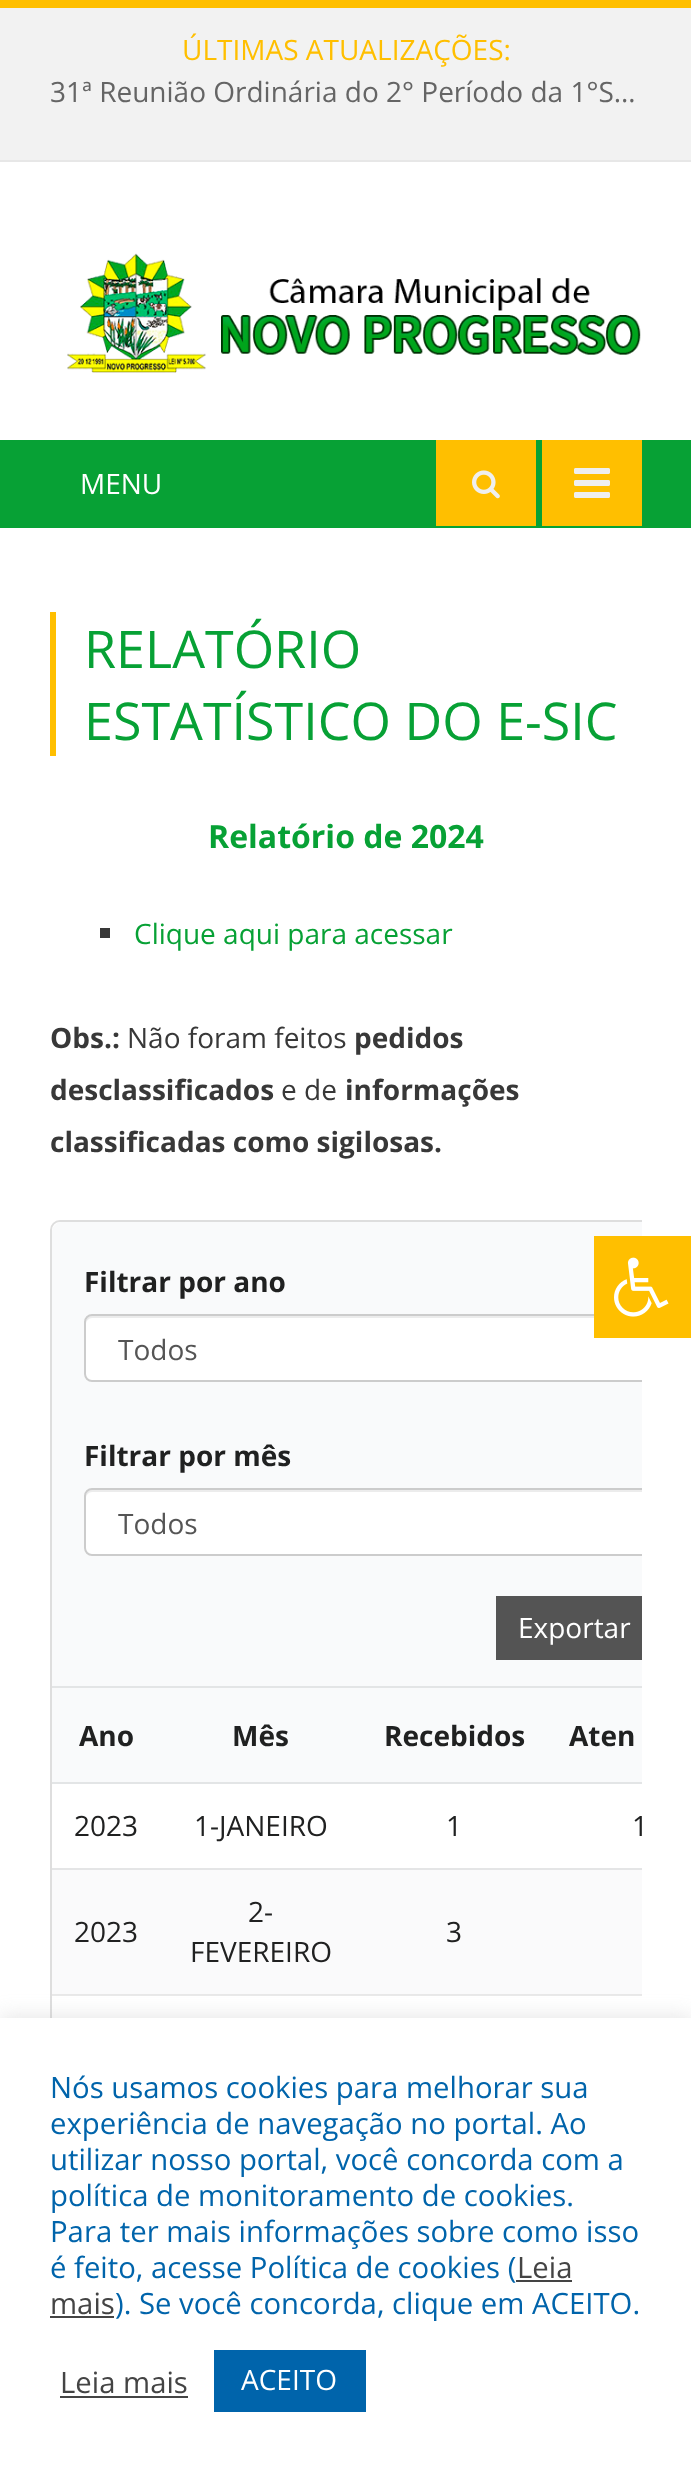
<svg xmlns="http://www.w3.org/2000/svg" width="691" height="2471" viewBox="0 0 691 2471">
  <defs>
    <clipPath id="clip1"><rect x="50" y="1220" width="592" height="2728"/></clipPath>
  </defs>
  <rect width="100%" height="100%" fill="rgb(255,255,255)"/>
  <rect x="0" y="8" width="691" height="152" fill="rgb(242,242,242)"/>
  <rect x="0" y="0" width="691" height="8" fill="rgb(255,191,0)"/>
  <rect x="0" y="160" width="691" height="2" fill="rgb(231,231,231)"/>
  <text x="182" y="60" font-family="Open Sans" font-size="28" fill="rgb(255,191,0)">ÚLTIMAS ATUALIZAÇÕES:</text>
  <text x="50" y="102" font-family="Open Sans" font-size="28" fill="rgb(101,101,101)">31ª Reunião Ordinária do 2° Período da 1°S…</text>
  <image x="67" y="253" width="574" height="120" href="pic1.png"/>
  <rect x="0" y="440" width="691" height="88" fill="rgb(7,161,53)"/>
  <text x="80" y="494" font-family="Open Sans" font-size="28" fill="rgb(255,255,255)">MENU</text>
  <rect x="436" y="440" width="100" height="86" fill="rgb(255,191,0)"/>
  <image x="472" y="470" width="28" height="29" href="pic2.png"/>
  <rect x="542" y="440" width="100" height="86" fill="rgb(255,191,0)"/>
  <image x="574" y="468" width="36" height="30" href="pic3.png"/>
  <rect x="50" y="612" width="6" height="144" fill="rgb(255,191,0)"/>
  <g font-family="Open Sans" font-size="52" fill="rgb(7,161,53)">
    <text>
      <tspan x="84" y="668">RELATÓRIO</tspan>
      <tspan x="84" y="740">ESTATÍSTICO DO E-SIC</tspan>
    </text>
  </g>
  <text x="208" y="848" font-family="Open Sans" font-size="32" font-weight="bold" fill="rgb(7,161,53)">Relatório de 2024</text>
  <rect x="100" y="928" width="10" height="10" fill="rgb(56,56,56)"/>
  <text x="134" y="944" font-family="Open Sans" font-size="28" fill="rgb(7,161,53)">Clique aqui para acessar</text>
  <text x="50" y="1048" font-family="Open Sans" font-size="28" font-weight="bold" fill="rgb(56,56,56)">Obs.:</text>
  <text x="127" y="1048" font-family="Open Sans" font-size="28" fill="rgb(56,56,56)">Não foram feitos</text>
  <g font-family="Open Sans" font-size="28" font-weight="bold" fill="rgb(56,56,56)">
    <text x="354" y="1048">pedidos</text>
    <text x="50" y="1100">desclassificados</text>
  </g>
  <text x="281" y="1100" font-family="Open Sans" font-size="28" fill="rgb(56,56,56)">e de</text>
  <g font-family="Open Sans" font-size="28" font-weight="bold" fill="rgb(56,56,56)">
    <text x="345" y="1100">informações</text>
    <text x="50" y="1152">classificadas como sigilosas.</text>
  </g>
  <g clip-path="url(#clip1)">
    <rect x="51" y="1221" width="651" height="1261" rx="9" fill="none" stroke="rgb(222,222,222)" stroke-width="2"/>
  </g>
  <path d="M62 1222H642V1688H52V1232C52 1226.5 56.5 1222 62 1222Z" fill="rgb(249,250,251)"/>
  <rect x="52" y="1686" width="590" height="2" fill="rgb(227,229,230)"/>
  <text x="84" y="1292" font-family="Open Sans" font-size="28" font-weight="bold" fill="rgb(32,33,33)">Filtrar por ano</text>
  <path d="M92 1314H642V1382H92C87.5 1382 84 1378.5 84 1374V1322C84 1317.5 87.5 1314 92 1314Z" fill="rgb(255,255,255)"/>
  <path d="M92 1318H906C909 1318 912 1321 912 1324C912 1320 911 1316 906 1316H92C87 1316 86 1320 86 1324C86 1321 89 1318 92 1318Z" fill="rgb(236,236,236)"/>
  <g clip-path="url(#clip1)">
    <rect x="85" y="1315" width="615" height="66" rx="7" fill="none" stroke="rgb(204,204,204)" stroke-width="2"/>
  </g>
  <text x="118" y="1360" font-family="Open Sans" font-size="28" fill="rgb(85,85,85)">Todos</text>
  <text x="84" y="1466" font-family="Open Sans" font-size="28" font-weight="bold" fill="rgb(32,33,33)">Filtrar por mês</text>
  <path d="M92 1488H642V1556H92C87.5 1556 84 1552.5 84 1548V1496C84 1491.5 87.5 1488 92 1488Z" fill="rgb(255,255,255)"/>
  <g clip-path="url(#clip1)">
    <path d="M92 1492H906C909 1492 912 1495 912 1498C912 1494 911 1490 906 1490H92C87 1490 86 1494 86 1498C86 1495 89 1492 92 1492Z" fill="rgb(236,236,236)"/>
    <rect x="85" y="1489" width="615" height="66" rx="7" fill="none" stroke="rgb(204,204,204)" stroke-width="2"/>
  </g>
  <text x="118" y="1534" font-family="Open Sans" font-size="28" fill="rgb(85,85,85)">Todos</text>
  <rect x="496" y="1596" width="146" height="64" fill="rgb(84,84,84)"/>
  <text x="518" y="1638" font-family="Open Sans" font-size="28" fill="rgb(255,255,255)">Exportar</text>
  <rect x="52" y="1688" width="590" height="94" fill="rgb(249,250,251)"/>
  <rect x="52" y="1782" width="590" height="2" fill="rgb(227,229,230)"/>
  <g font-family="Open Sans" font-size="28" font-weight="bold" fill="rgb(32,33,33)">
    <text x="79" y="1746">Ano</text>
    <text x="232" y="1746">Mês</text>
    <text x="384" y="1746">Recebidos</text>
    <text x="569" y="1746">Aten</text>
  </g>
  <g font-family="Open Sans" font-size="28" fill="rgb(32,33,33)">
    <text x="74" y="1836">2023</text>
    <text x="194" y="1836">1-JANEIRO</text>
    <text x="446" y="1836">1</text>
    <text x="632" y="1836">1</text>
  </g>
  <rect x="52" y="1870" width="590" height="124" fill="rgb(250,250,251)"/>
  <rect x="52" y="1868" width="590" height="2" fill="rgb(228,229,230)"/>
  <g font-family="Open Sans" font-size="28" fill="rgb(32,33,33)">
    <text x="74" y="1942">2023</text>
    <text x="248" y="1922">2-</text>
    <text x="190" y="1962">FEVEREIRO</text>
    <text x="446" y="1942">3</text>
  </g>
  <rect x="52" y="1994" width="590" height="2" fill="rgb(233,233,233)"/>
  <rect x="594" y="1236" width="97" height="102" fill="rgb(255,191,0)"/>
  <image x="614" y="1257" width="55" height="60" href="pic4.png"/>
  <rect x="0" y="2016" width="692" height="454" fill="rgba(172,171,171,0.3)" filter="blur(10px)"/>
  <rect x="0" y="2018" width="691" height="453" fill="rgb(255,255,255)"/>
  <g font-family="Open Sans" font-size="29.3" fill="rgb(0,100,171)">
    <text>
      <tspan x="50" y="2098">Nós usamos cookies para melhorar sua</tspan>
      <tspan x="50" y="2134">experiência de navegação no portal. Ao</tspan>
      <tspan x="50" y="2170">utilizar nosso portal, você concorda com a</tspan>
      <tspan x="50" y="2206">política de monitoramento de cookies.</tspan>
      <tspan x="50" y="2242">Para ter mais informações sobre como isso</tspan>
      <tspan x="50" y="2278">é feito, acesse Política de cookies (</tspan>
    </text>
  </g>
  <text x="517" y="2278" font-family="Open Sans" font-size="29.3" fill="rgb(68,68,68)">Leia</text>
  <rect x="516" y="2280" width="56" height="2" fill="rgb(68,68,68)"/>
  <text x="50" y="2314" font-family="Open Sans" font-size="29.3" fill="rgb(68,68,68)">mais</text>
  <rect x="50" y="2316" width="64" height="2" fill="rgb(68,68,68)"/>
  <text x="115" y="2314" font-family="Open Sans" font-size="29.3" fill="rgb(0,100,171)">). Se você concorda, clique em ACEITO.</text>
  <text x="60" y="2393" font-family="Open Sans" font-size="29.3" fill="rgb(68,68,68)">Leia mais</text>
  <rect x="60" y="2396" width="128" height="2" fill="rgb(68,68,68)"/>
  <rect x="214" y="2350" width="152" height="62" fill="rgb(0,100,171)"/>
  <text x="241" y="2390" font-family="Open Sans" font-size="28" fill="rgb(255,255,255)">ACEITO</text>
</svg>
